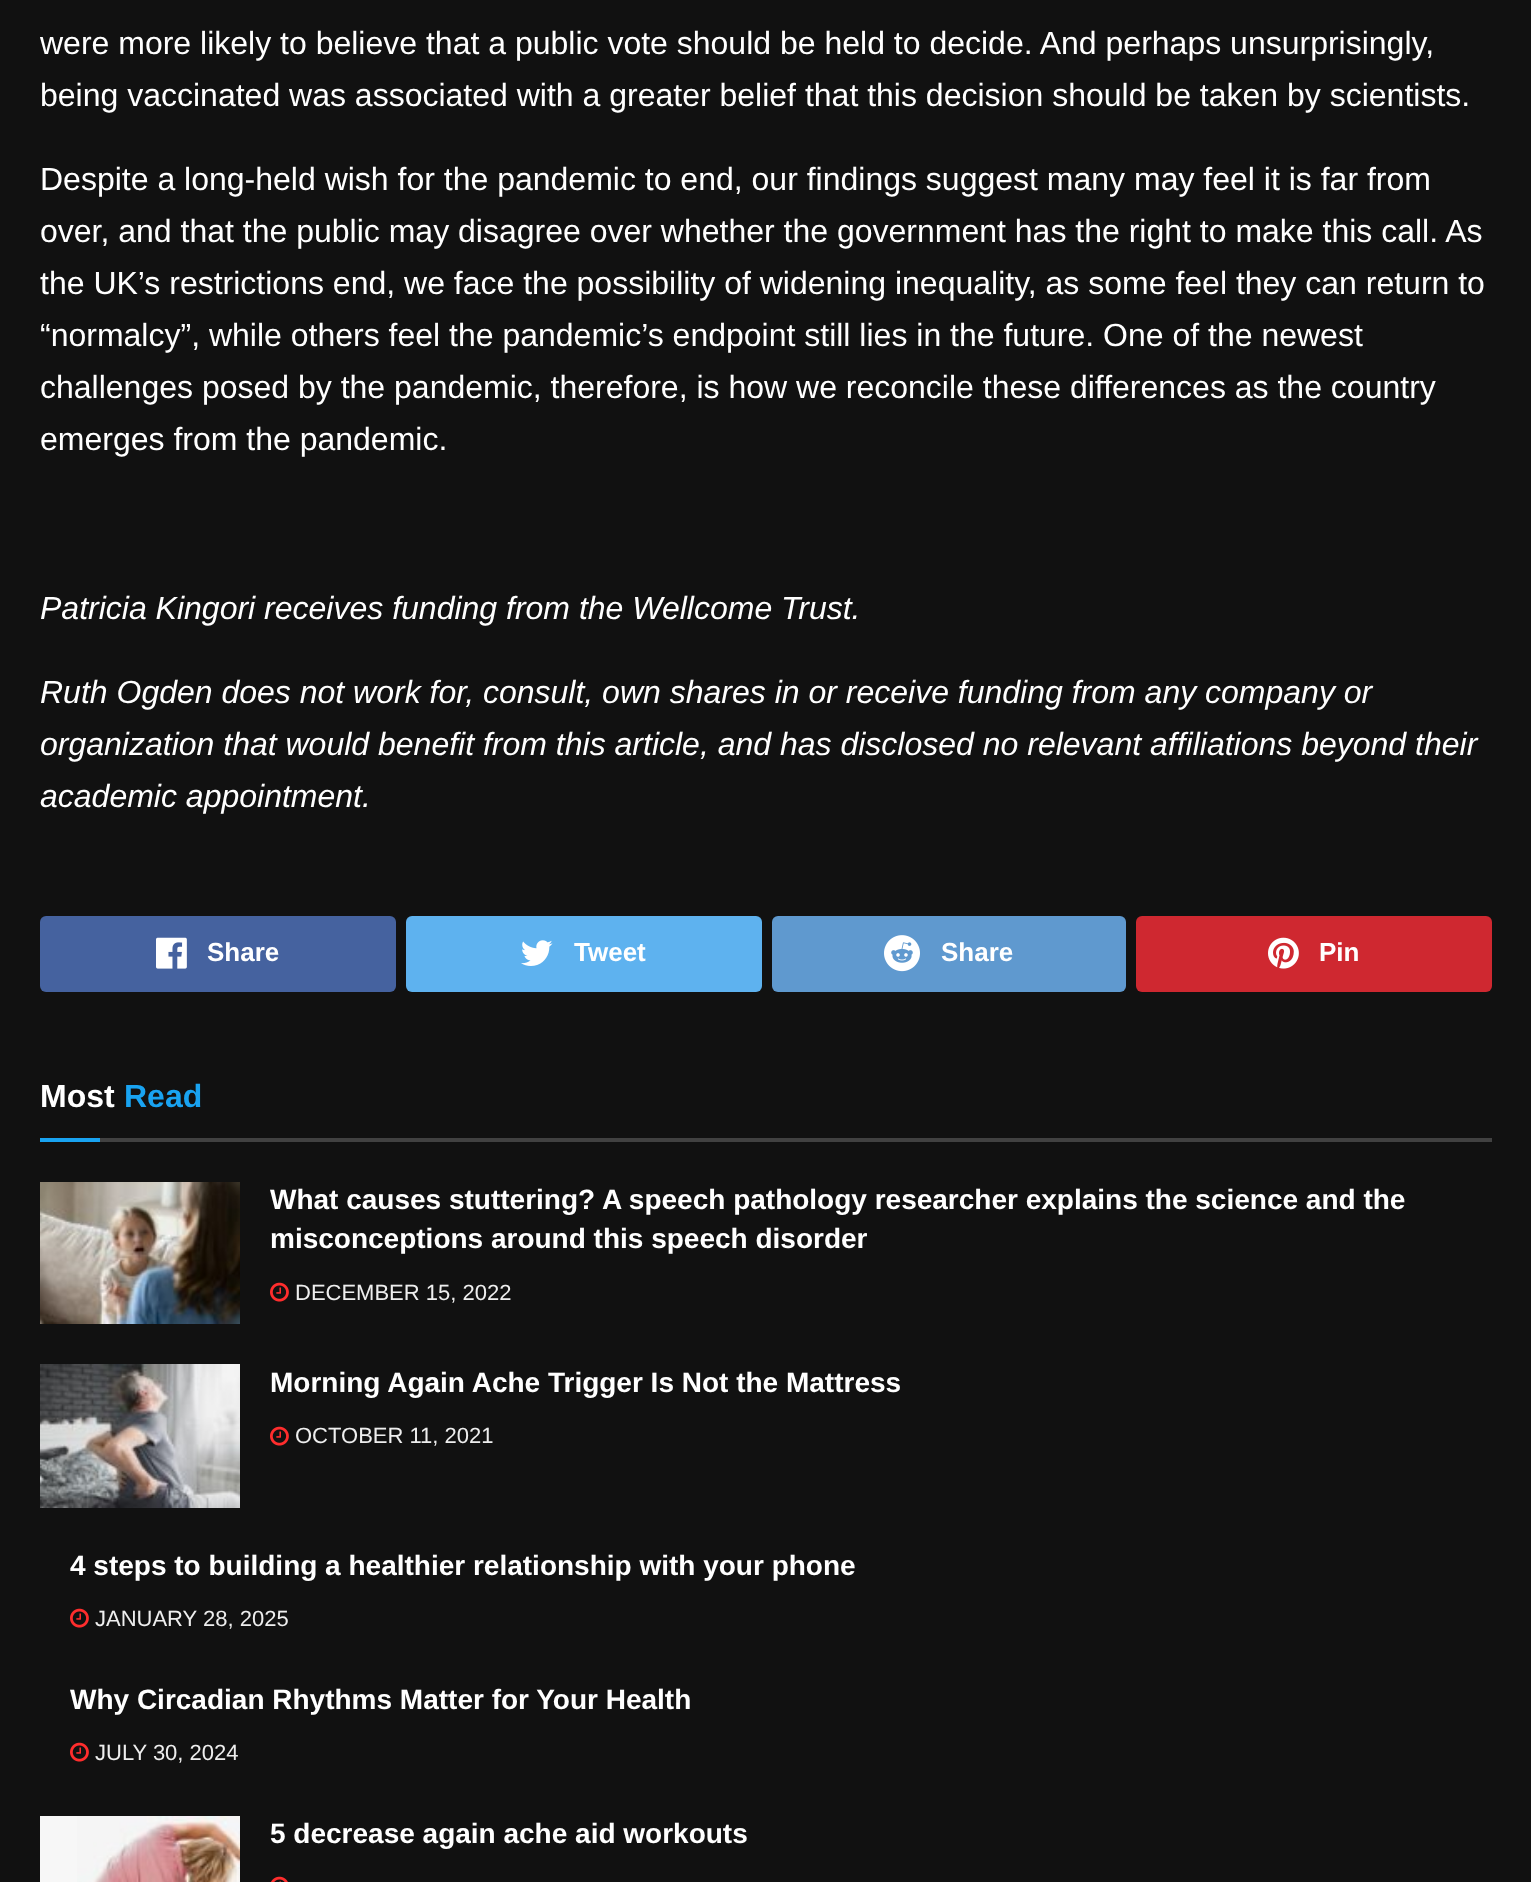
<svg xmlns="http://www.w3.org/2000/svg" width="1531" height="1882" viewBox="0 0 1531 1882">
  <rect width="100%" height="100%" fill="rgb(17,17,17)"/>
  <g font-family="Liberation Sans" font-size="32" fill="rgb(255,255,255)">
    <text>
      <tspan x="40" y="54">were more likely to believe that a public vote should be held to decide. And perhaps unsurprisingly,</tspan>
      <tspan x="40" y="106">being vaccinated was associated with a greater belief that this decision should be taken by scientists.</tspan>
    </text>
    <text>
      <tspan x="40" y="190">Despite a long-held wish for the pandemic to end, our findings suggest many may feel it is far from</tspan>
      <tspan x="40" y="242">over, and that the public may disagree over whether the government has the right to make this call. As</tspan>
      <tspan x="40" y="294">the UK’s restrictions end, we face the possibility of widening inequality, as some feel they can return to</tspan>
      <tspan x="40" y="346">“normalcy”, while others feel the pandemic’s endpoint still lies in the future. One of the newest</tspan>
      <tspan x="40" y="398">challenges posed by the pandemic, therefore, is how we reconcile these differences as the country</tspan>
      <tspan x="40" y="450">emerges from the pandemic.</tspan>
    </text>
  </g>
  <g font-family="Liberation Sans" font-size="32" font-style="italic" fill="rgb(255,255,255)">
    <text x="40" y="619">Patricia Kingori receives funding from the Wellcome Trust.</text>
    <text>
      <tspan x="40" y="703">Ruth Ogden does not work for, consult, own shares in or receive funding from any company or</tspan>
      <tspan x="40" y="755">organization that would benefit from this article, and has disclosed no relevant affiliations beyond their</tspan>
      <tspan x="40" y="807">academic appointment.</tspan>
    </text>
  </g>
  <rect x="40" y="916" width="356" height="76" rx="6" fill="rgb(69,98,159)"/>
  <image x="156" y="937" width="31" height="32" href="pic1.png"/>
  <text x="207" y="961" font-family="Liberation Sans" font-size="26" font-weight="bold" fill="rgb(255,255,255)">Share</text>
  <rect x="406" y="916" width="356" height="76" rx="6" fill="rgb(94,178,239)"/>
  <image x="521" y="940" width="32" height="26" href="pic2.png"/>
  <text x="574" y="961" font-family="Liberation Sans" font-size="26" font-weight="bold" fill="rgb(255,255,255)">Tweet</text>
  <rect x="772" y="916" width="354" height="76" rx="6" fill="rgb(95,153,207)"/>
  <image x="884" y="935" width="36" height="37" href="pic3.png"/>
  <text x="941" y="961" font-family="Liberation Sans" font-size="26" font-weight="bold" fill="rgb(255,255,255)">Share</text>
  <rect x="1136" y="916" width="356" height="76" rx="6" fill="rgb(207,40,48)"/>
  <image x="1268" y="937" width="31" height="32" href="pic4.png"/>
  <text x="1319" y="961" font-family="Liberation Sans" font-size="26" font-weight="bold" fill="rgb(255,255,255)">Pin</text>
  <rect x="100" y="1138" width="1392" height="4" fill="rgb(65,65,65)"/>
  <text x="40" y="1107" font-family="Liberation Sans" font-size="32" font-weight="bold" fill="rgb(255,255,255)">Most</text>
  <text x="124" y="1107" font-family="Liberation Sans" font-size="32" font-weight="bold" fill="rgb(25,163,241)">Read</text>
  <rect x="40" y="1138" width="60" height="4" fill="rgb(25,163,241)"/>
  <image x="40" y="1182" width="200" height="142" href="pic5.png"/>
  <g font-family="Liberation Sans" font-size="28" font-weight="bold" fill="rgb(255,255,255)">
    <text>
      <tspan x="270" y="1209">What causes stuttering? A speech pathology researcher explains the science and the</tspan>
      <tspan x="270" y="1248">misconceptions around this speech disorder</tspan>
    </text>
  </g>
  <image x="270" y="1282" width="19" height="20" href="pic6.png"/>
  <text x="295" y="1300" font-family="Liberation Sans" font-size="22" fill="rgb(238,238,238)">DECEMBER 15, 2022</text>
  <image x="40" y="1364" width="200" height="144" href="pic7.png"/>
  <text x="270" y="1392" font-family="Liberation Sans" font-size="28" font-weight="bold" fill="rgb(255,255,255)">Morning Again Ache Trigger Is Not the Mattress</text>
  <image x="270" y="1426" width="19" height="20" href="pic6.png"/>
  <text x="295" y="1443" font-family="Liberation Sans" font-size="22" fill="rgb(238,238,238)">OCTOBER 11, 2021</text>
  <text x="70" y="1575" font-family="Liberation Sans" font-size="28" font-weight="bold" fill="rgb(255,255,255)">4 steps to building a healthier relationship with your phone</text>
  <image x="70" y="1608" width="19" height="20" href="pic6.png"/>
  <text x="95" y="1626" font-family="Liberation Sans" font-size="22" fill="rgb(238,238,238)">JANUARY 28, 2025</text>
  <text x="70" y="1709" font-family="Liberation Sans" font-size="28" font-weight="bold" fill="rgb(255,255,255)">Why Circadian Rhythms Matter for Your Health</text>
  <image x="70" y="1742" width="19" height="20" href="pic6.png"/>
  <text x="95" y="1760" font-family="Liberation Sans" font-size="22" fill="rgb(238,238,238)">JULY 30, 2024</text>
  <rect x="40" y="1816" width="37" height="66" fill="rgb(247,247,247)"/>
  <image x="77" y="1816" width="163" height="66" href="pic8.png"/>
  <text x="270" y="1843" font-family="Liberation Sans" font-size="28" font-weight="bold" fill="rgb(255,255,255)">5 decrease again ache aid workouts</text>
  <image x="271" y="1876" width="17" height="6" href="pic9.png"/>
</svg>
